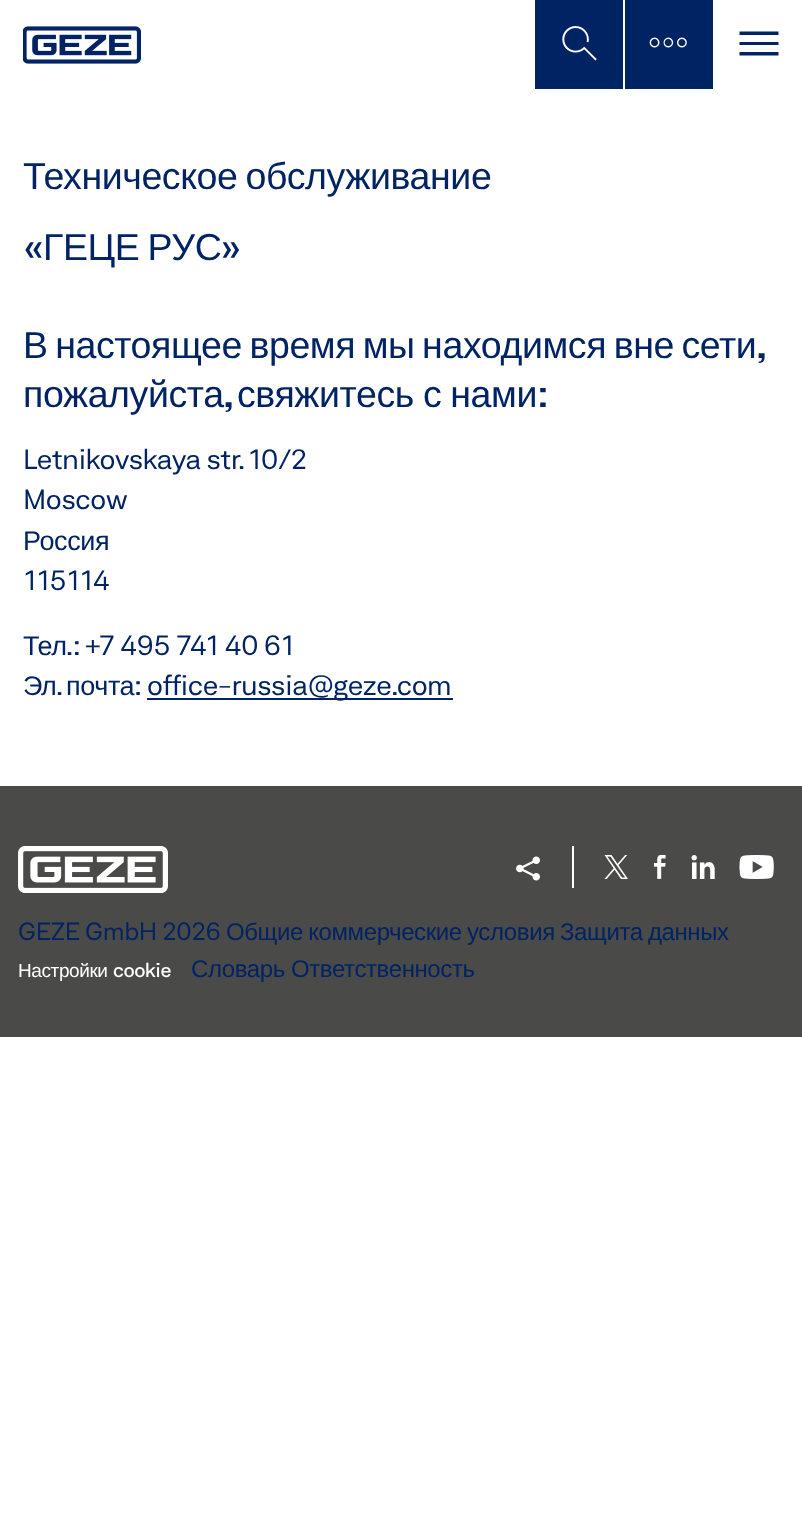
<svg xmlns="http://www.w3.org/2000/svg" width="802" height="1517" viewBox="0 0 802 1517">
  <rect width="100%" height="100%" fill="rgb(255,255,255)"/>
  <image x="23" y="26" width="118" height="38" href="pic1.png"/>
  <rect x="535" y="0" width="88" height="89" fill="rgb(0,35,100)"/>
  <image x="562" y="26" width="35" height="35" href="pic2.png"/>
  <rect x="625" y="0" width="88" height="89" fill="rgb(0,35,100)"/>
  <image x="649" y="37" width="38" height="11" href="pic3.png"/>
  <path d="M739.5 42H778.5V45H739.5ZM739.5 31.5H778.5V35H739.5ZM739.5 52H778.5V55.5H739.5Z" fill="rgb(0,35,100)"/>
  <text x="23" y="189" word-spacing="-2" font-family="Liberation Sans" font-size="37.5" letter-spacing="-0.4" fill="rgb(0,35,100)">Техническое обслуживание</text>
  <text x="23" y="260" font-family="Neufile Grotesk" font-size="37.5" font-weight="500" letter-spacing="-0.4" fill="rgb(0,35,100)">«</text>
  <text x="43" y="260" word-spacing="-2" font-family="Liberation Sans" font-size="37.5" letter-spacing="-0.4" fill="rgb(0,35,100)">ГЕЦЕ РУС</text>
  <text x="221" y="260" font-family="Neufile Grotesk" font-size="37.5" font-weight="500" letter-spacing="-0.4" fill="rgb(0,35,100)">»</text>
  <text x="23" y="358" word-spacing="-2.5" font-family="Liberation Sans" font-size="37.5" letter-spacing="-0.4" fill="rgb(0,35,100)">В настоящее время мы находимся вне сети</text>
  <text x="756" y="358" font-family="Neufile Grotesk" font-size="37.5" font-weight="500" letter-spacing="-0.4" fill="rgb(0,35,100)">,</text>
  <text x="23" y="407" font-family="Liberation Sans" font-size="37.5" letter-spacing="-0.4" fill="rgb(0,35,100)">пожалуйста</text>
  <text x="223" y="407" font-family="Neufile Grotesk" font-size="37.5" font-weight="500" letter-spacing="-0.4" fill="rgb(0,35,100)">,</text>
  <text x="237" y="407" word-spacing="-1" font-family="Liberation Sans" font-size="37.5" letter-spacing="-0.4" fill="rgb(0,35,100)">свяжитесь с нами</text>
  <text x="537" y="407" font-family="Neufile Grotesk" font-size="37.5" font-weight="500" letter-spacing="-0.4" fill="rgb(0,35,100)">:</text>
  <g font-family="Neufile Grotesk" font-size="27" letter-spacing="-0.4" fill="rgb(0,35,100)">
    <text>
      <tspan x="23" y="469">Letnikovskaya str. 10/2</tspan>
      <tspan x="23" y="509">Moscow</tspan>
    </text>
  </g>
  <text x="23" y="550" font-family="Liberation Sans" font-size="27" letter-spacing="-0.4" fill="rgb(0,35,100)">Россия</text>
  <text x="23" y="590" font-family="Neufile Grotesk" font-size="27" letter-spacing="-0.4" fill="rgb(0,35,100)">115114</text>
  <text x="23" y="655" font-family="Liberation Sans" font-size="27" letter-spacing="-0.4" fill="rgb(0,35,100)">Тел</text>
  <text x="66" y="655" font-family="Neufile Grotesk" font-size="27" letter-spacing="-0.4" fill="rgb(0,35,100)">.: +7 495 741 40 61</text>
  <text x="23" y="695" font-family="Liberation Sans" font-size="27" letter-spacing="-0.4" fill="rgb(0,35,100)">Эл</text>
  <text x="56" y="695" font-family="Neufile Grotesk" font-size="27" letter-spacing="-0.4" fill="rgb(0,35,100)">.</text>
  <text x="66" y="695" font-family="Liberation Sans" font-size="27" letter-spacing="-0.4" fill="rgb(0,35,100)">почта</text>
  <text x="134" y="695" font-family="Neufile Grotesk" font-size="27" letter-spacing="-0.4" fill="rgb(0,35,100)">:</text>
  <rect x="147" y="698" width="306" height="2" fill="rgb(0,35,100)"/>
  <text x="147" y="695" font-family="Neufile Grotesk" font-size="27" letter-spacing="-0.4" fill="rgb(0,35,100)">office-russia@geze.com</text>
  <rect x="0" y="786" width="802" height="251" fill="rgb(74,74,72)"/>
  <image x="18" y="846" width="150" height="47" href="pic4.png"/>
  <rect x="572" y="846" width="2" height="42" fill="rgb(255,255,255)"/>
  <image x="516" y="856" width="24" height="25" href="pic5.png"/>
  <image x="604" y="855" width="24" height="24" href="pic6.png"/>
  <image x="654" y="855" width="12" height="24" href="pic7.png"/>
  <image x="691" y="855" width="24" height="24" href="pic8.png"/>
  <image x="739" y="855" width="35" height="24" href="pic9.png"/>
  <text x="18" y="940" font-family="Neufile Grotesk" font-size="24" letter-spacing="-0.4" fill="rgb(0,35,100)">GEZE GmbH 2026</text>
  <g font-family="Liberation Sans" font-size="24" letter-spacing="-0.4" fill="rgb(0,35,100)">
    <text x="226" y="940" word-spacing="-1">Общие коммерческие условия</text>
    <text x="560" y="940" word-spacing="-1">Защита данных</text>
  </g>
  <text x="18" y="977" font-family="Liberation Sans" font-size="19" letter-spacing="-0.4" fill="rgb(255,255,255)">Настройки</text>
  <text x="113" y="977" font-family="Neufile Grotesk" font-size="19" font-weight="500" letter-spacing="-0.4" fill="rgb(255,255,255)">cookie</text>
  <g font-family="Liberation Sans" font-size="24" letter-spacing="-0.4" fill="rgb(0,35,100)">
    <text x="191" y="977">Словарь</text>
    <text x="291" y="977">Ответственность</text>
  </g>
</svg>
